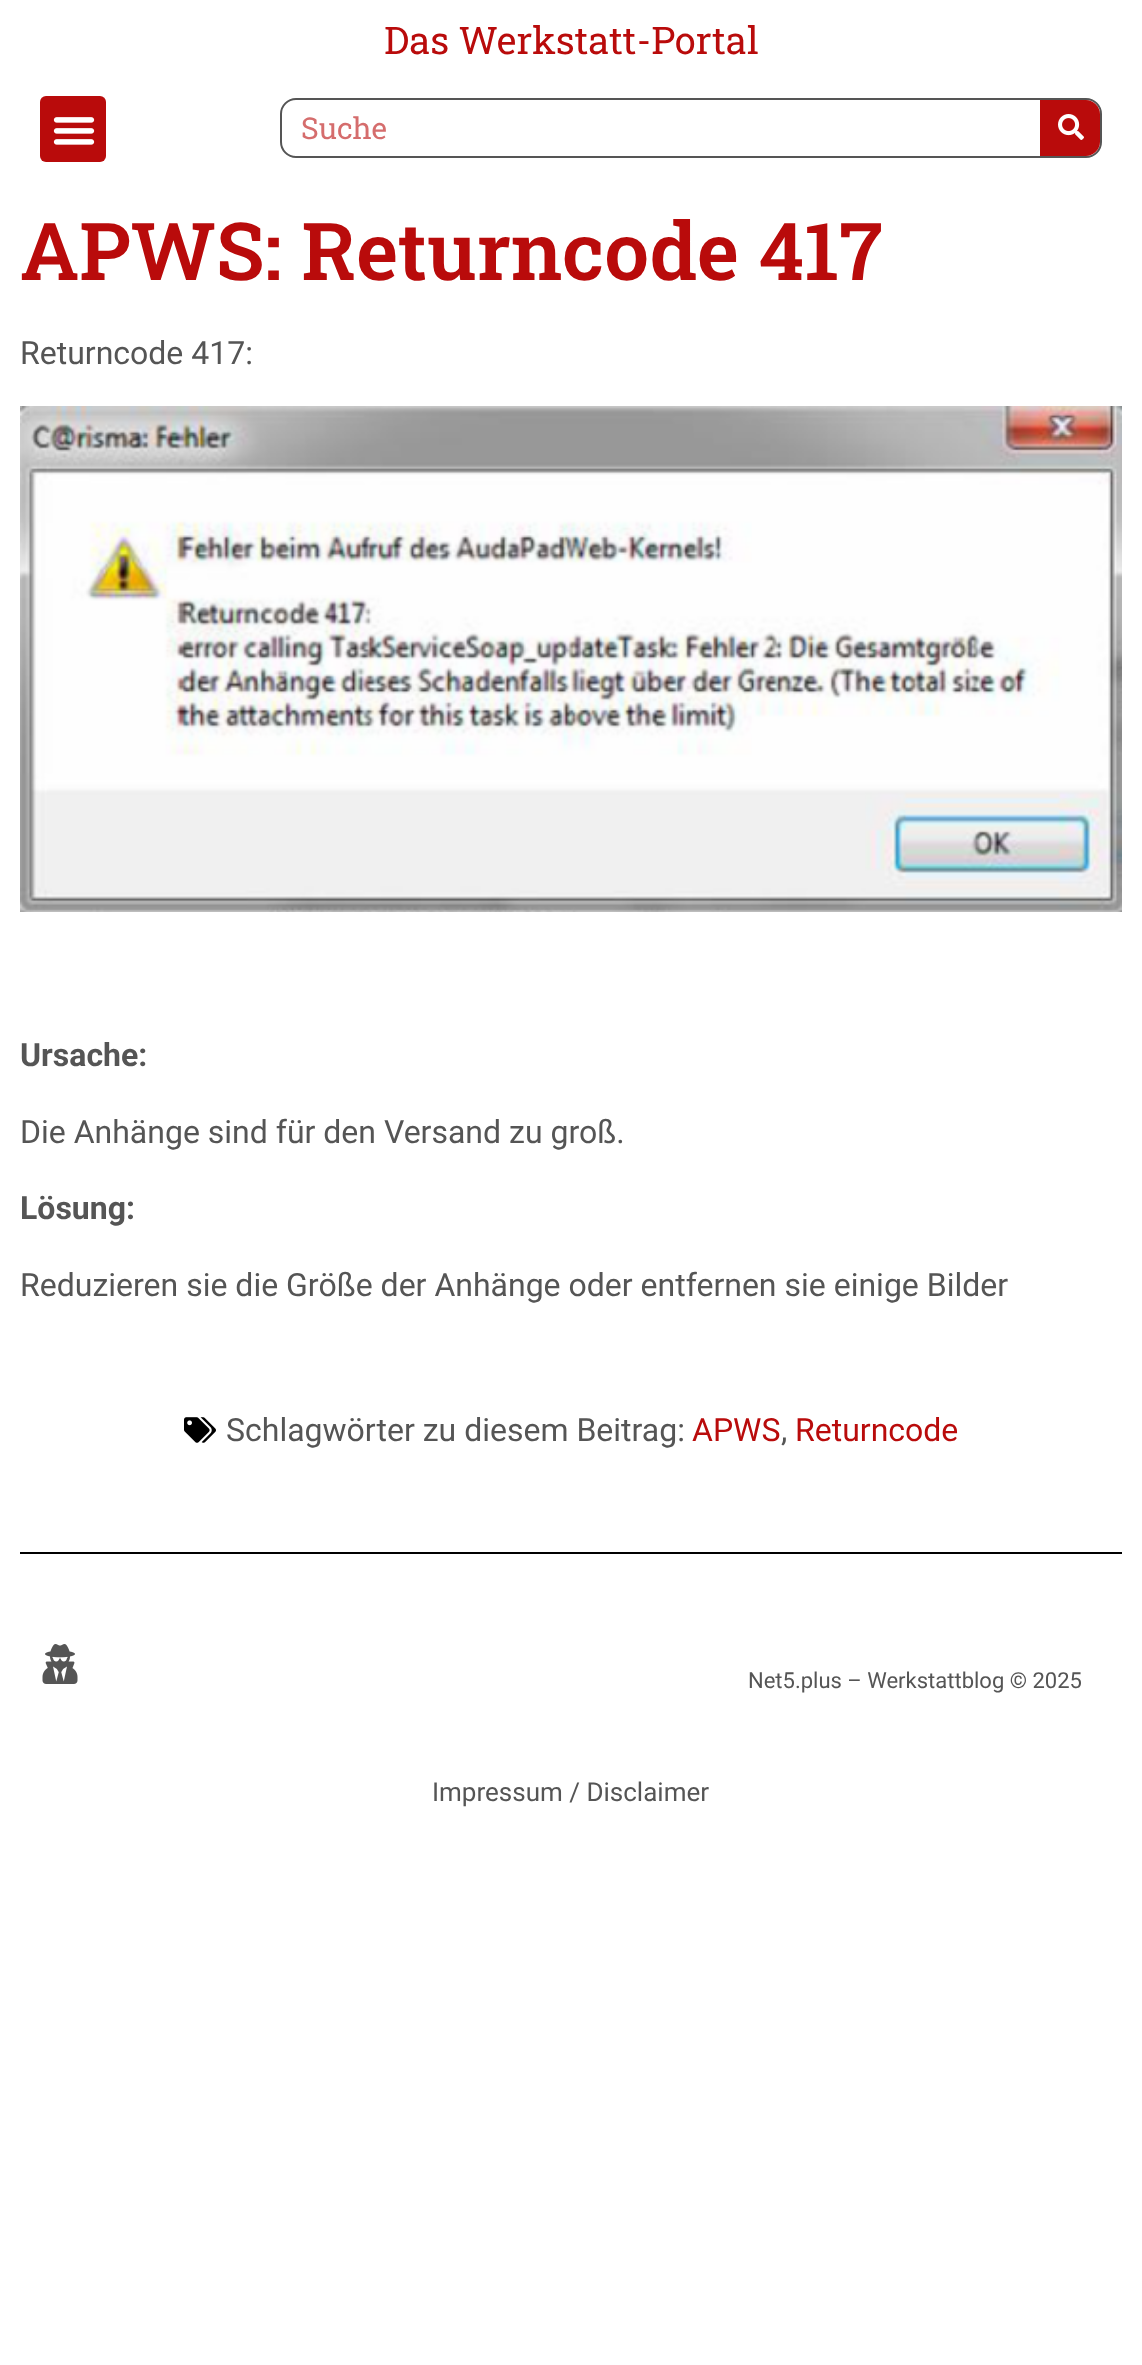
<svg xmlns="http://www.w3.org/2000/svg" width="1142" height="2365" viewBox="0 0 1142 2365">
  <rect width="100%" height="100%" fill="rgb(255,255,255)"/>
  <text x="384" y="54" font-family="Roboto Slab" font-size="38" fill="rgb(185,11,11)">Das Werkstatt-Portal</text>
  <rect x="40" y="96" width="66" height="66" rx="6" fill="rgb(185,11,11)"/>
  <image x="53" y="117" width="42" height="28" href="pic1.png"/>
  <rect x="281" y="99" width="820" height="58" rx="15" fill="none" stroke="rgb(85,85,85)" stroke-width="2"/>
  <text x="301" y="139" font-family="Roboto Slab" font-size="30" fill="rgb(213,109,109)">Suche</text>
  <path d="M1040 100H1086C1093.5 100 1100 106.5 1100 114V142C1100 149.5 1093.5 156 1086 156H1040Z" fill="rgb(185,11,11)"/>
  <image x="1058" y="114" width="26" height="26" href="pic2.png"/>
  <text x="20" y="280" font-family="Roboto Slab" font-size="80" font-weight="600" fill="rgb(185,11,11)">APWS: Returncode 417</text>
  <text x="20" y="364" font-family="Roboto" font-size="32" fill="rgb(85,85,85)">Returncode 417:</text>
  <image x="20" y="406" width="1102" height="506" href="pic3.png"/>
  <text x="20" y="1066" font-family="Roboto" font-size="32" font-weight="bold" fill="rgb(85,85,85)">Ursache:</text>
  <text x="20" y="1143" font-family="Roboto" font-size="32" fill="rgb(85,85,85)">Die Anhänge sind für den Versand zu groß.</text>
  <text x="20" y="1219" font-family="Roboto" font-size="32" font-weight="bold" fill="rgb(85,85,85)">Lösung:</text>
  <text x="20" y="1296" font-family="Roboto" font-size="32" fill="rgb(85,85,85)">Reduzieren sie die Größe der Anhänge oder entfernen sie einige Bilder</text>
  <image x="184" y="1417" width="32" height="26" href="pic4.png"/>
  <text x="226" y="1441" font-family="Roboto" font-size="32" fill="rgb(85,85,85)">Schlagwörter zu diesem Beitrag:</text>
  <text x="692" y="1441" font-family="Roboto" font-size="32" fill="rgb(185,11,11)">APWS</text>
  <text x="781" y="1441" font-family="Roboto" font-size="32" fill="rgb(85,85,85)">,</text>
  <text x="795" y="1441" font-family="Roboto" font-size="32" fill="rgb(185,11,11)">Returncode</text>
  <rect x="20" y="1552" width="1102" height="2" fill="rgb(0,0,0)"/>
  <image x="42" y="1644" width="36" height="40" href="pic5.png"/>
  <text x="748" y="1688" font-family="Roboto" font-size="22" fill="rgb(85,85,85)">Net5.plus – Werkstattblog © 2025</text>
  <text x="432" y="1801" font-family="Roboto" font-size="26" fill="rgb(85,85,85)">Impressum / Disclaimer</text>
</svg>
